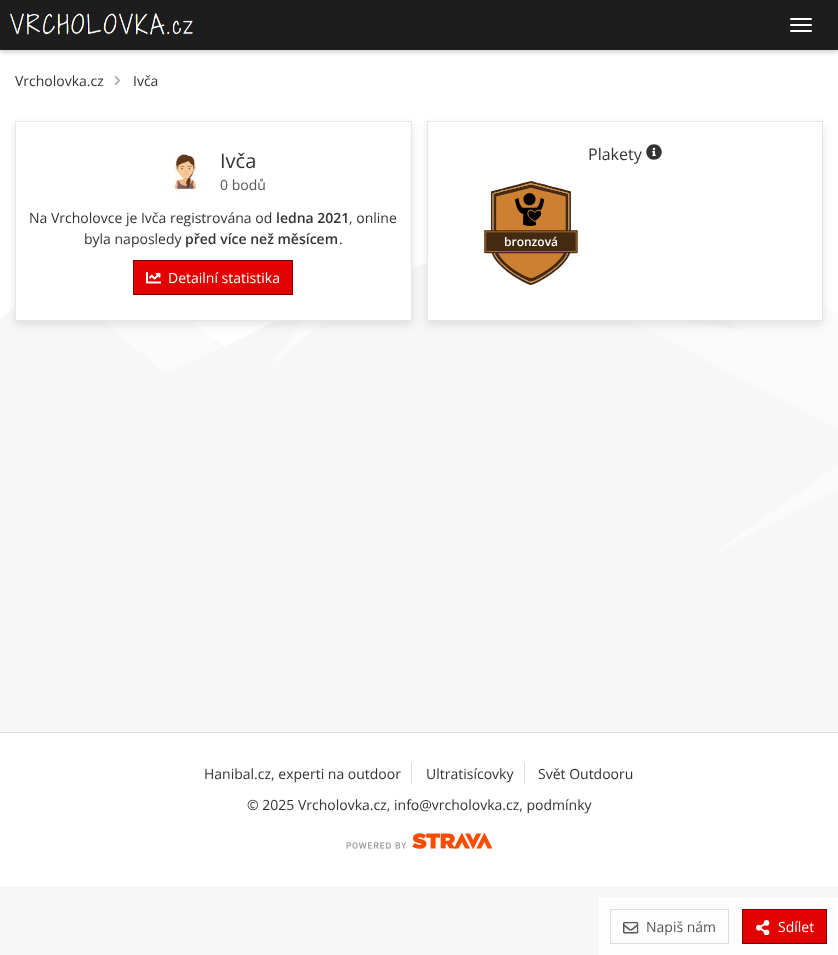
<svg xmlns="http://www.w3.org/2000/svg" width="838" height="955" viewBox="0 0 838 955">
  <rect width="100%" height="100%" fill="rgb(255,255,255)"/>
  <image x="0" y="262" width="838" height="693" href="pic1.png"/>
  <rect x="0" y="2" width="838" height="50" fill="rgba(0,0,0,0.2)" filter="blur(2.5px)"/>
  <rect x="0" y="0" width="838" height="50" fill="rgb(29,29,29)"/>
  <image x="10" y="13" width="183" height="22" href="pic2.png"/>
  <rect x="790" y="18" width="22" height="2" rx="1" fill="rgb(255,255,255)"/>
  <rect x="790" y="24" width="22" height="2" rx="1" fill="rgb(255,255,255)"/>
  <rect x="790" y="30" width="22" height="2" rx="1" fill="rgb(255,255,255)"/>
  <text x="15" y="86" font-family="Open Sans" font-size="14" fill="rgb(51,51,51)">Vrcholovka.cz</text>
  <image x="114" y="75" width="7" height="10" href="pic3.png"/>
  <text x="133" y="86" font-family="Open Sans" font-size="14" fill="rgb(51,51,51)">Ivča</text>
  <rect x="15" y="125" width="397" height="200" fill="rgba(0,0,0,0.1)" filter="blur(5px)"/>
  <rect x="15.5" y="121.5" width="396" height="199" fill="rgb(255,255,255)" stroke="rgb(230,230,230)"/>
  <image x="170" y="152" width="30" height="43" href="pic4.png"/>
  <text x="220" y="168" font-family="Open Sans" font-size="20" fill="rgb(51,51,51)">Ivča</text>
  <text x="220" y="190" font-family="Open Sans" font-size="14" fill="rgb(85,85,85)">0 bodů</text>
  <text x="29" y="223" font-family="Open Sans" font-size="14" fill="rgb(51,51,51)">Na Vrcholovce je Ivča registrována od</text>
  <text x="276" y="223" font-family="Open Sans" font-size="14" font-weight="600" fill="rgb(51,51,51)">ledna 2021</text>
  <g font-family="Open Sans" font-size="14" fill="rgb(51,51,51)">
    <text x="349" y="223">, online</text>
    <text x="84" y="244">byla naposledy</text>
  </g>
  <text x="185" y="244" font-family="Open Sans" font-size="14" font-weight="600" fill="rgb(51,51,51)">před více než měsícem</text>
  <text x="339" y="244" font-family="Open Sans" font-size="14" fill="rgb(51,51,51)">.</text>
  <rect x="133.5" y="260.5" width="159" height="34" fill="rgb(226,0,0)" stroke="rgb(121,0,0)"/>
  <image x="146" y="272" width="15" height="12" href="pic5.png"/>
  <text x="168" y="283" font-family="Open Sans" font-size="14" fill="rgb(255,255,255)">Detailní statistika</text>
  <rect x="427" y="125" width="396" height="200" fill="rgba(0,0,0,0.1)" filter="blur(5px)"/>
  <rect x="427.5" y="121.5" width="395" height="199" fill="rgb(255,255,255)" stroke="rgb(230,230,230)"/>
  <text x="588" y="160" font-family="Open Sans" font-size="16" fill="rgb(51,51,51)">Plakety</text>
  <image x="646" y="144" width="16" height="16" href="pic6.png"/>
  <image x="484" y="181" width="94" height="104" href="pic7.png"/>
  <image x="515" y="193" width="30" height="33" href="pic8.png"/>
  <text x="504" y="246" font-family="Open Sans" font-size="12" font-weight="600" fill="rgb(255,255,255)">bronzová</text>
  <rect x="0" y="733" width="838" height="153" fill="rgb(255,255,255)"/>
  <rect x="0" y="732" width="838" height="1" fill="rgb(221,221,221)"/>
  <rect x="411" y="763" width="1" height="21" fill="rgb(221,221,221)"/>
  <text x="204" y="779" font-family="Open Sans" font-size="14" fill="rgb(51,51,51)">Hanibal.cz, experti na outdoor</text>
  <rect x="524" y="763" width="1" height="21" fill="rgb(221,221,221)"/>
  <g font-family="Open Sans" font-size="14" fill="rgb(51,51,51)">
    <text x="426" y="779">Ultratisícovky</text>
    <text x="538" y="779">Svět Outdooru</text>
    <text x="247" y="810">© 2025 Vrcholovka.cz, info@vrcholovka.cz, podmínky</text>
  </g>
  <image x="346" y="832" width="147" height="18" href="pic9.png"/>
  <rect x="599.5" y="898.5" width="238" height="56" fill="rgb(253,253,253)" stroke="rgb(255,255,255)"/>
  <rect x="610.5" y="909.5" width="118" height="34" fill="none" stroke="rgb(221,221,221)"/>
  <image x="623" y="922" width="16" height="12" href="pic10.png"/>
  <text x="646" y="932" font-family="Open Sans" font-size="14" fill="rgb(85,85,85)">Napiš nám</text>
  <rect x="742.5" y="909.5" width="84" height="34" fill="rgb(226,0,0)" stroke="rgb(121,0,0)"/>
  <image x="756" y="920" width="14" height="15" href="pic11.png"/>
  <text x="778" y="932" font-family="Open Sans" font-size="14" fill="rgb(255,255,255)">Sdílet</text>
</svg>
